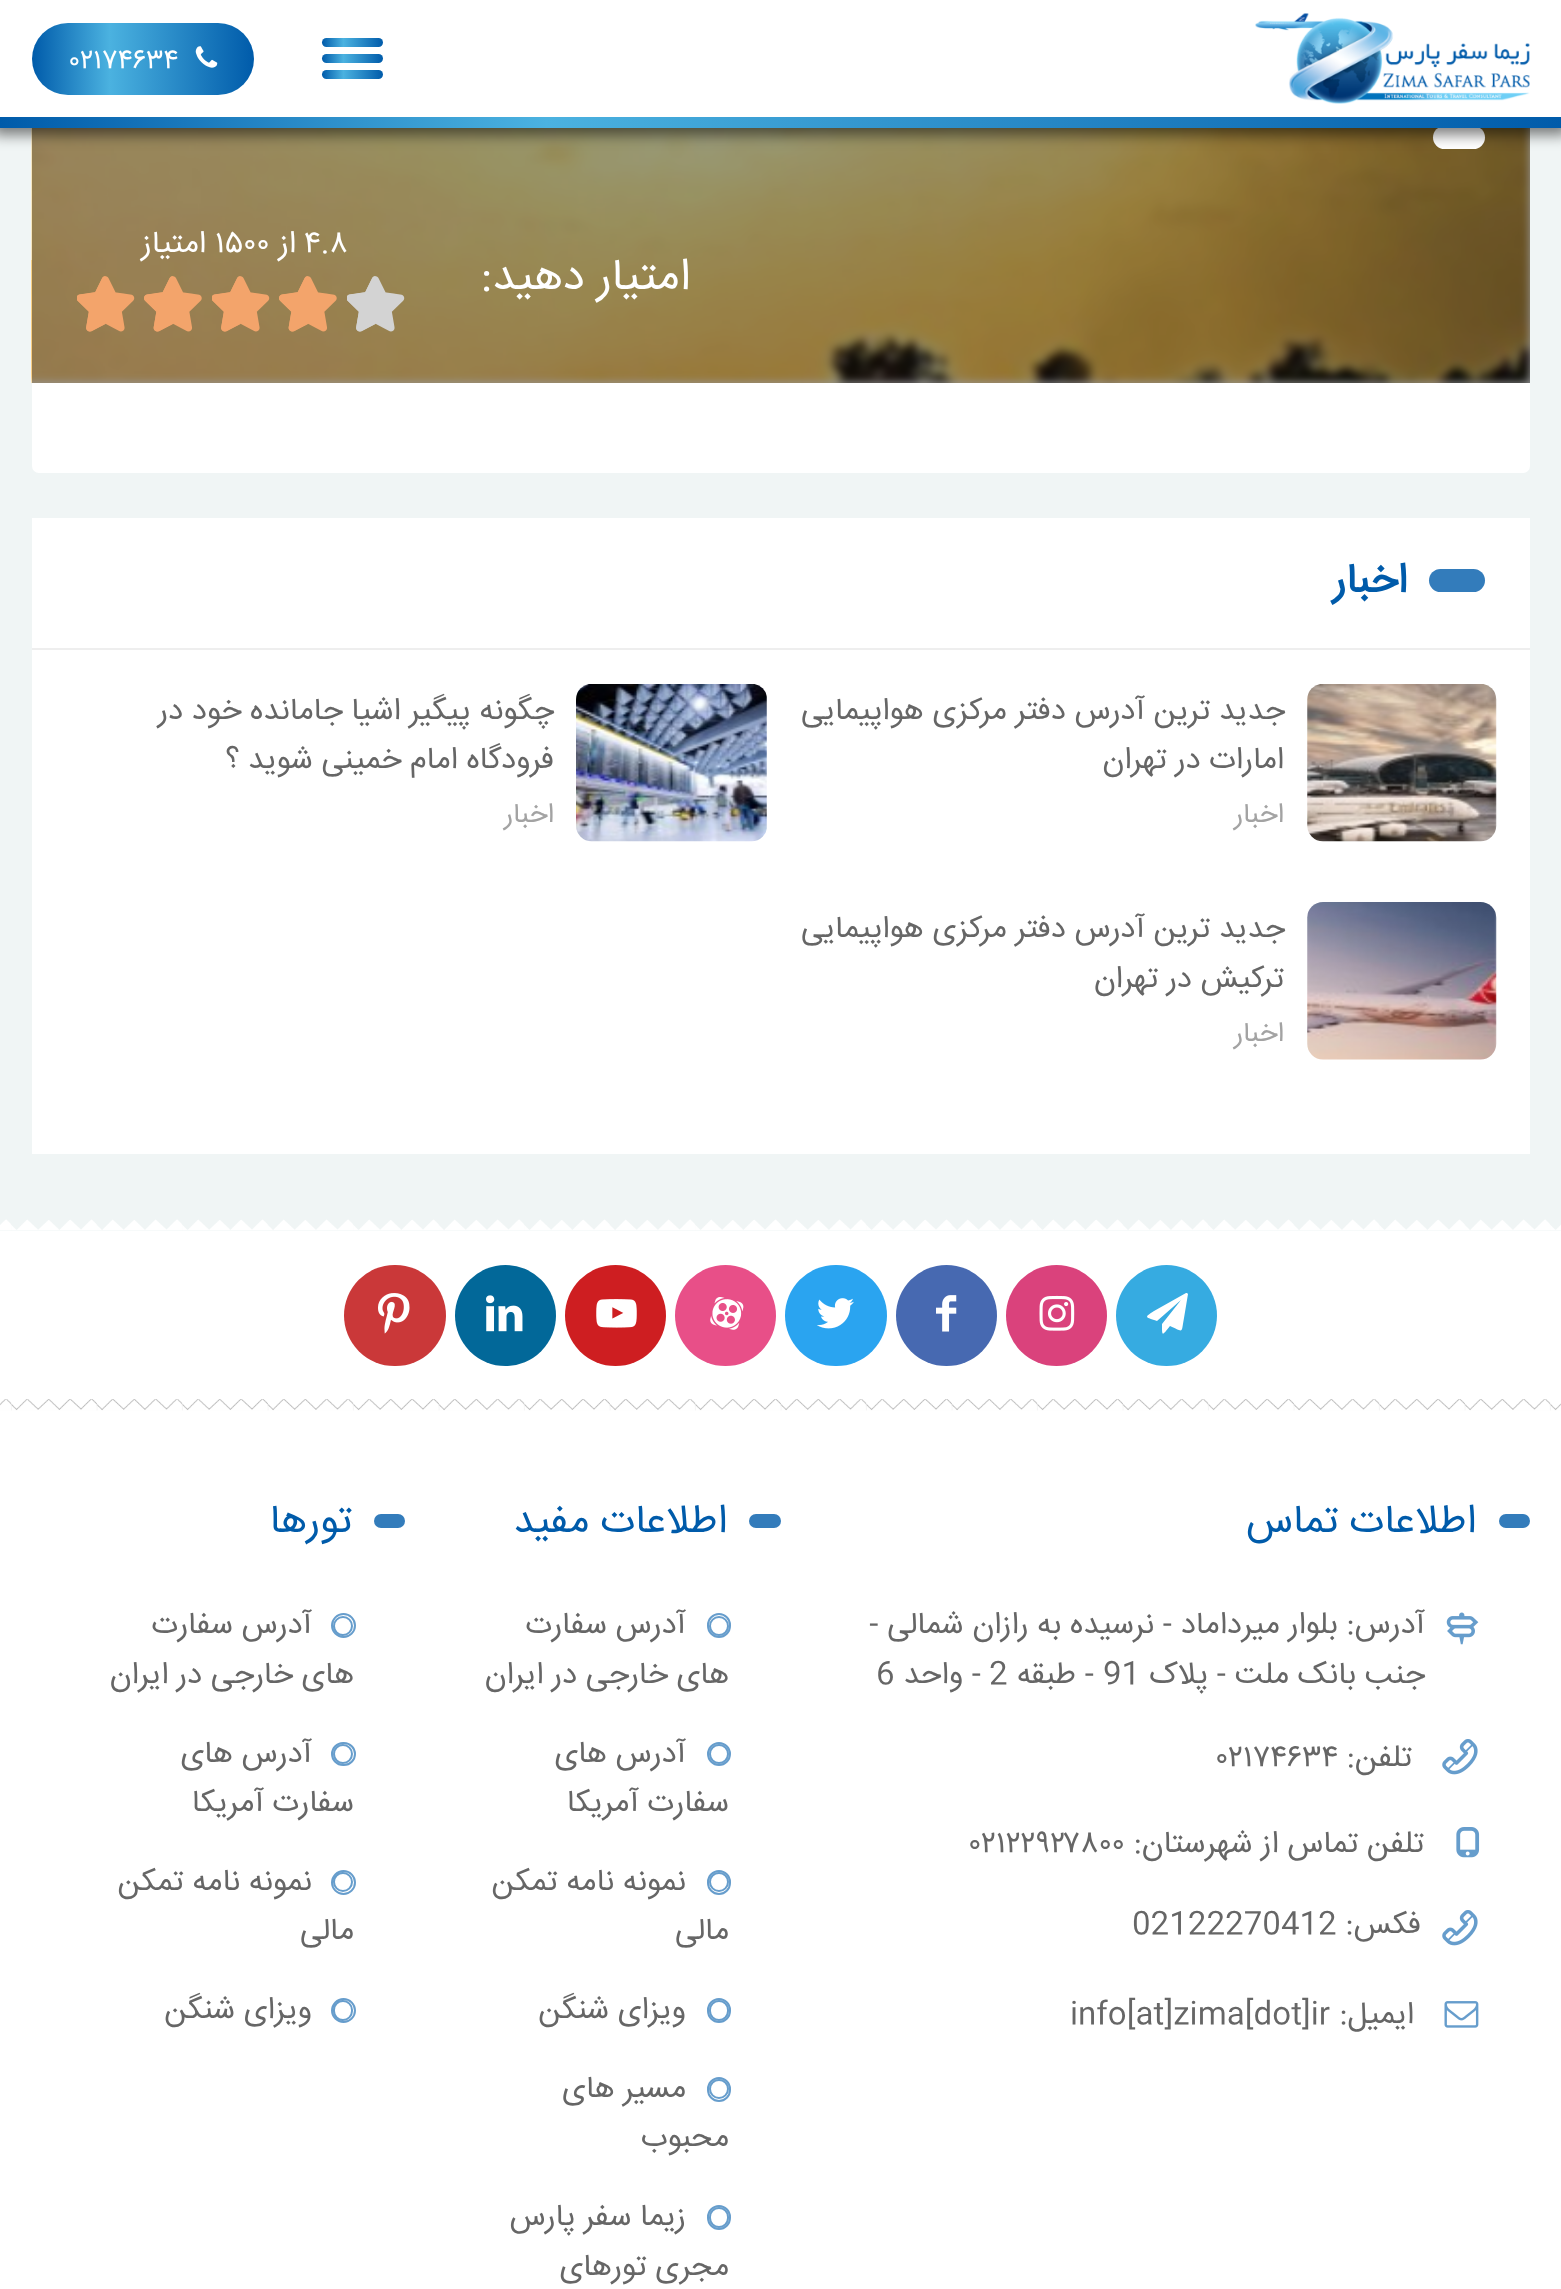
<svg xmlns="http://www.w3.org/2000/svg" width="1561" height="2289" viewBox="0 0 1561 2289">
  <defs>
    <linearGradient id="g1" gradientUnits="userSpaceOnUse" x1="322" y1="59" x2="383" y2="59"><stop offset="0" stop-color="rgb(0,91,170)"/><stop offset="0.35" stop-color="rgb(75,178,224)"/><stop offset="1" stop-color="rgb(0,91,170)"/></linearGradient>
    <linearGradient id="g2" gradientUnits="userSpaceOnUse" x1="322" y1="43" x2="383" y2="43"><stop offset="0" stop-color="rgb(0,91,170)"/><stop offset="0.35" stop-color="rgb(75,178,224)"/><stop offset="1" stop-color="rgb(0,91,170)"/></linearGradient>
    <linearGradient id="g3" gradientUnits="userSpaceOnUse" x1="322" y1="74" x2="383" y2="74"><stop offset="0" stop-color="rgb(0,91,170)"/><stop offset="0.35" stop-color="rgb(75,178,224)"/><stop offset="1" stop-color="rgb(0,91,170)"/></linearGradient>
    <linearGradient id="g4" gradientUnits="userSpaceOnUse" x1="32" y1="59" x2="254" y2="58"><stop offset="0" stop-color="rgb(0,91,170)"/><stop offset="0.35" stop-color="rgb(75,178,224)"/><stop offset="1" stop-color="rgb(0,91,170)"/></linearGradient>
    <linearGradient id="g5" gradientUnits="userSpaceOnUse" x1="0" y1="123" x2="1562" y2="123"><stop offset="0" stop-color="rgb(0,91,170)"/><stop offset="0.35" stop-color="rgb(75,178,224)"/><stop offset="1" stop-color="rgb(0,91,170)"/></linearGradient>
  </defs>
  <rect width="100%" height="100%" fill="rgb(240,245,245)"/>
  <rect x="32" y="18" width="1498" height="455" rx="7" fill="rgb(255,255,255)"/>
  <image x="31" y="128" width="1499" height="255" href="pic3.png"/>
  <rect x="32" y="128" width="1498" height="255" fill="rgba(0,0,0,0.4)"/>
  <rect x="1433" y="126" width="52" height="23" rx="11.5" fill="rgb(255,255,255)"/>
  <rect x="-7" y="-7" width="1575" height="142" fill="rgba(0,0,0,0.5)" filter="blur(7px)"/>
  <rect x="0" y="0" width="1561" height="117" fill="rgb(255,255,255)"/>
  <image x="1255" y="13" width="275" height="91" href="pic1.png"/>
  <rect x="322" y="54" width="61" height="9" rx="4.5" fill="url(#g1)"/>
  <rect x="322" y="38" width="61" height="9" rx="4.5" fill="url(#g2)"/>
  <rect x="322" y="70" width="61" height="9" rx="4.5" fill="url(#g3)"/>
  <rect x="32" y="23" width="222" height="72" rx="36" fill="url(#g4)"/>
  <image x="195" y="46" width="23" height="22" href="pic2.png"/>
  <text x="70" y="68" font-family="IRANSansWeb" font-size="27.5" fill="rgb(255,255,255)">۰۲۱۷۴۶۳۴</text>
  <rect x="0" y="117" width="1561" height="11" fill="url(#g5)"/>
  <text x="304" y="252" font-family="IRANSansWeb" font-size="30.75" fill="rgb(255,255,255)">۴.۸</text>
  <text x="296" y="252" font-family="IRANSansWeb" font-size="30.75" direction="rtl" fill="rgb(255,255,255)">از</text>
  <text x="215" y="252" font-family="IRANSansWeb" font-size="30.75" fill="rgb(255,255,255)">۱۵۰۰</text>
  <text x="206" y="252" font-family="IRANSansWeb" font-size="30.75" direction="rtl" fill="rgb(255,255,255)">امتیاز</text>
  <image x="347" y="276" width="58" height="56" href="pic4.png"/>
  <image x="279" y="276" width="58" height="56" href="pic5.png"/>
  <image x="212" y="276" width="58" height="56" href="pic6.png"/>
  <image x="144" y="276" width="58" height="56" href="pic7.png"/>
  <image x="77" y="276" width="58" height="56" href="pic8.png"/>
  <text x="690" y="289" font-family="IRANSansWeb" font-size="44.5" direction="rtl" fill="rgb(255,255,255)">امتیار دهید:</text>
  <rect x="32" y="518" width="1498" height="636" fill="rgb(255,255,255)"/>
  <rect x="32" y="648" width="1498" height="2" fill="rgb(238,238,238)"/>
  <rect x="1429" y="569" width="56" height="23" rx="11.5" fill="rgb(51,124,187)"/>
  <text x="1407" y="592" font-family="IRANSansWeb" font-size="41" font-weight="bold" direction="rtl" fill="rgb(0,91,170)">اخبار</text>
  <image x="1307" y="684" width="190" height="158" href="pic9.png"/>
  <g font-family="IRANSansWeb" font-size="30.75" direction="rtl" fill="rgb(102,102,102)">
    <text x="1285" y="719">جدید ترین آدرس دفتر مرکزی هواپیمایی</text>
    <text x="1284" y="768">امارات در تهران</text>
  </g>
  <text x="1284" y="822" font-family="IRANSansWeb" font-size="27.5" direction="rtl" fill="rgb(163,163,163)">اخبار</text>
  <image x="576" y="684" width="191" height="158" href="pic10.png"/>
  <g font-family="IRANSansWeb" font-size="30.75" direction="rtl" fill="rgb(102,102,102)">
    <text>
      <tspan x="554" y="719">چگونه پیگیر اشیا جامانده خود در</tspan>
      <tspan x="554" y="768">فرودگاه امام خمینی شوید ؟</tspan>
    </text>
  </g>
  <text x="554" y="822" font-family="IRANSansWeb" font-size="27.5" direction="rtl" fill="rgb(163,163,163)">اخبار</text>
  <image x="1307" y="902" width="190" height="158" href="pic11.png"/>
  <g font-family="IRANSansWeb" font-size="30.75" direction="rtl" fill="rgb(102,102,102)">
    <text x="1285" y="937">جدید ترین آدرس دفتر مرکزی هواپیمایی</text>
    <text x="1284" y="987">ترکیش در تهران</text>
  </g>
  <text x="1284" y="1041" font-family="IRANSansWeb" font-size="27.5" direction="rtl" fill="rgb(163,163,163)">اخبار</text>
  <rect x="0" y="1231" width="1561" height="1058" fill="rgb(255,255,255)"/>
  <image x="0" y="1219" width="1561" height="12" href="pic12.png"/>
  <circle cx="1166.5" cy="1315.5" r="50.5" fill="rgb(54,171,225)"/>
  <path d="M1187 1293L1188 1294L1184 1318C1181 1334 1184 1332 1170 1326C1162 1336 1162 1337 1162 1324L1181 1300L1157 1321C1146 1317 1143 1318 1154 1311L1186 1293Z" fill="rgb(255,255,255)"/>
  <circle cx="1056.5" cy="1315.5" r="50.5" fill="rgb(218,66,124)"/>
  <image x="1039" y="1295" width="36" height="36" href="pic13.png"/>
  <circle cx="946.5" cy="1315.5" r="50.5" fill="rgb(71,105,177)"/>
  <image x="936" y="1295" width="21" height="37" href="pic14.png"/>
  <rect x="785" y="1265" width="102" height="101" rx="50.5" fill="rgb(42,164,240)"/>
  <image x="817" y="1298" width="37" height="31" href="pic15.png"/>
  <circle cx="725.5" cy="1315.5" r="50.5" fill="rgb(232,79,136)"/>
  <image x="710" y="1297" width="34" height="33" href="pic16.png"/>
  <circle cx="615.5" cy="1315.5" r="50.5" fill="rgb(206,30,33)"/>
  <image x="596" y="1299" width="41" height="29" href="pic17.png"/>
  <circle cx="505.5" cy="1315.5" r="50.5" fill="rgb(2,104,153)"/>
  <image x="486" y="1295" width="37" height="37" href="pic18.png"/>
  <rect x="344" y="1265" width="102" height="101" rx="50.5" fill="rgb(202,56,57)"/>
  <image x="378" y="1293" width="32" height="41" href="pic19.png"/>
  <image x="0" y="1399" width="1561" height="12" href="pic20.png"/>
  <rect x="1499" y="1514" width="31" height="14" rx="7" fill="rgb(51,124,187)"/>
  <text x="1476" y="1532" font-family="IRANSansWeb" font-size="40" direction="rtl" fill="rgb(0,91,170)">اطلاعات تماس</text>
  <image x="1446" y="1612" width="33" height="33" href="pic21.png"/>
  <g font-family="IRANSansWeb" font-size="30.75" direction="rtl" fill="rgb(102,102,102)">
    <text>
      <tspan x="1425" y="1633">آدرس: بلوار میرداماد - نرسیده به رازان شمالی -</tspan>
      <tspan x="1425" y="1683">جنب بانک ملت - پلاک</tspan>
    </text>
  </g>
  <text x="1103" y="1683" font-family="IRANSansWeb" font-size="30.75" fill="rgb(102,102,102)">91</text>
  <text x="1094" y="1683" font-family="IRANSansWeb" font-size="30.75" direction="rtl" fill="rgb(102,102,102)">- طبقه</text>
  <text x="989" y="1683" font-family="IRANSansWeb" font-size="30.75" fill="rgb(102,102,102)">2</text>
  <text x="981" y="1683" font-family="IRANSansWeb" font-size="30.75" direction="rtl" fill="rgb(102,102,102)">- واحد</text>
  <text x="876" y="1683" font-family="IRANSansWeb" font-size="30.75" fill="rgb(102,102,102)">6</text>
  <image x="1442" y="1739" width="36" height="36" href="pic22.png"/>
  <text x="1412" y="1766" font-family="IRANSansWeb" font-size="30.75" direction="rtl" fill="rgb(102,102,102)">تلفن:</text>
  <text x="1217" y="1766" font-family="IRANSansWeb" font-size="30.75" fill="rgb(102,102,102)">۰۲۱۷۴۶۳۴</text>
  <image x="1456" y="1827" width="24" height="31" href="pic23.png"/>
  <text x="1424" y="1852" font-family="IRANSansWeb" font-size="30.75" direction="rtl" fill="rgb(102,102,102)">تلفن تماس از شهرستان:</text>
  <text x="970" y="1852" font-family="IRANSansWeb" font-size="30.75" fill="rgb(102,102,102)">۰۲۱۲۲۹۲۷۸۰۰</text>
  <image x="1442" y="1910" width="36" height="36" href="pic22.png"/>
  <text x="1421" y="1933" font-family="IRANSansWeb" font-size="30.75" direction="rtl" fill="rgb(102,102,102)">فکس:</text>
  <text x="1132" y="1933" font-family="IRANSansWeb" font-size="30.75" fill="rgb(102,102,102)">02122270412</text>
  <image x="1444" y="2001" width="35" height="27" href="pic24.png"/>
  <text x="1414" y="2023" font-family="IRANSansWeb" font-size="30.75" direction="rtl" fill="rgb(102,102,102)">ایمیل:</text>
  <text x="1070" y="2023" font-family="IRANSansWeb" font-size="30.75" fill="rgb(102,102,102)">info[at]zima[dot]ir</text>
  <rect x="749" y="1514" width="32" height="14" rx="7" fill="rgb(51,124,187)"/>
  <text x="727" y="1532" font-family="IRANSansWeb" font-size="40" direction="rtl" fill="rgb(0,91,170)">اطلاعات مفید</text>
  <circle cx="719" cy="1626" r="9" fill="none" stroke="rgb(102,157,204)" stroke-width="2"/>
  <rect x="708" y="1614" width="22" height="23" rx="11" fill="none" stroke="rgba(0,91,170,0.6)" stroke-width="2"/>
  <g font-family="IRANSansWeb" font-size="30.75" direction="rtl" fill="rgb(102,102,102)">
    <text x="686" y="1633">آدرس سفارت</text>
    <text x="729" y="1683">های خارجی در ایران</text>
  </g>
  <circle cx="719" cy="1754" r="9" fill="none" stroke="rgb(102,157,204)" stroke-width="2"/>
  <circle cx="719" cy="1754" r="11" fill="none" stroke="rgba(0,91,170,0.6)" stroke-width="2"/>
  <g font-family="IRANSansWeb" font-size="30.75" direction="rtl" fill="rgb(102,102,102)">
    <text x="686" y="1762">آدرس های</text>
    <text x="729" y="1811">سفارت آمریکا</text>
  </g>
  <circle cx="719" cy="1882" r="9" fill="none" stroke="rgb(102,157,204)" stroke-width="2"/>
  <rect x="708" y="1871" width="22" height="23" rx="11" fill="none" stroke="rgba(0,91,170,0.6)" stroke-width="2"/>
  <g font-family="IRANSansWeb" font-size="30.75" direction="rtl" fill="rgb(102,102,102)">
    <text x="686" y="1890">نمونه نامه تمکن</text>
    <text x="729" y="1939">مالی</text>
  </g>
  <rect x="710" y="2001" width="18" height="19" rx="9" fill="none" stroke="rgb(102,157,204)" stroke-width="2"/>
  <rect x="708" y="1999" width="22" height="23" rx="11" fill="none" stroke="rgba(0,91,170,0.6)" stroke-width="2"/>
  <text x="686" y="2018" font-family="IRANSansWeb" font-size="30.75" direction="rtl" fill="rgb(102,102,102)">ویزای شنگن</text>
  <circle cx="719" cy="2089" r="9" fill="none" stroke="rgb(102,157,204)" stroke-width="2"/>
  <rect x="708" y="2078" width="22" height="23" rx="11" fill="none" stroke="rgba(0,91,170,0.6)" stroke-width="2"/>
  <g font-family="IRANSansWeb" font-size="30.75" direction="rtl" fill="rgb(102,102,102)">
    <text x="686" y="2097">مسیر های</text>
    <text x="729" y="2146">محبوب</text>
  </g>
  <rect x="710" y="2208" width="18" height="19" rx="9" fill="none" stroke="rgb(102,157,204)" stroke-width="2"/>
  <rect x="708" y="2206" width="22" height="23" rx="11" fill="none" stroke="rgba(0,91,170,0.6)" stroke-width="2"/>
  <g font-family="IRANSansWeb" font-size="30.75" direction="rtl" fill="rgb(102,102,102)">
    <text x="686" y="2225">زیما سفر پارس</text>
    <text x="729" y="2275">مجری تورهای</text>
  </g>
  <rect x="374" y="1514" width="31" height="14" rx="7" fill="rgb(51,124,187)"/>
  <text x="352" y="1532" font-family="IRANSansWeb" font-size="40" direction="rtl" fill="rgb(0,91,170)">تورها</text>
  <circle cx="343" cy="1626" r="9" fill="none" stroke="rgb(102,157,204)" stroke-width="2"/>
  <circle cx="343.5" cy="1625.5" r="11.5" fill="none" stroke="rgba(0,91,170,0.6)" stroke-width="2"/>
  <g font-family="IRANSansWeb" font-size="30.75" direction="rtl" fill="rgb(102,102,102)">
    <text x="312" y="1633">آدرس سفارت</text>
    <text x="354" y="1683">های خارجی در ایران</text>
  </g>
  <circle cx="343" cy="1754" r="9" fill="none" stroke="rgb(102,157,204)" stroke-width="2"/>
  <rect x="332" y="1743" width="23" height="22" rx="11" fill="none" stroke="rgba(0,91,170,0.6)" stroke-width="2"/>
  <g font-family="IRANSansWeb" font-size="30.75" direction="rtl" fill="rgb(102,102,102)">
    <text x="312" y="1762">آدرس های</text>
    <text x="354" y="1811">سفارت آمریکا</text>
  </g>
  <circle cx="343" cy="1882" r="9" fill="none" stroke="rgb(102,157,204)" stroke-width="2"/>
  <circle cx="343.5" cy="1882.5" r="11.5" fill="none" stroke="rgba(0,91,170,0.6)" stroke-width="2"/>
  <g font-family="IRANSansWeb" font-size="30.75" direction="rtl" fill="rgb(102,102,102)">
    <text x="312" y="1890">نمونه نامه تمکن</text>
    <text x="354" y="1939">مالی</text>
  </g>
  <rect x="334" y="2001" width="18" height="19" rx="9" fill="none" stroke="rgb(102,157,204)" stroke-width="2"/>
  <circle cx="343.5" cy="2010.5" r="11.5" fill="none" stroke="rgba(0,91,170,0.6)" stroke-width="2"/>
  <text x="312" y="2018" font-family="IRANSansWeb" font-size="30.75" direction="rtl" fill="rgb(102,102,102)">ویزای شنگن</text>
</svg>
